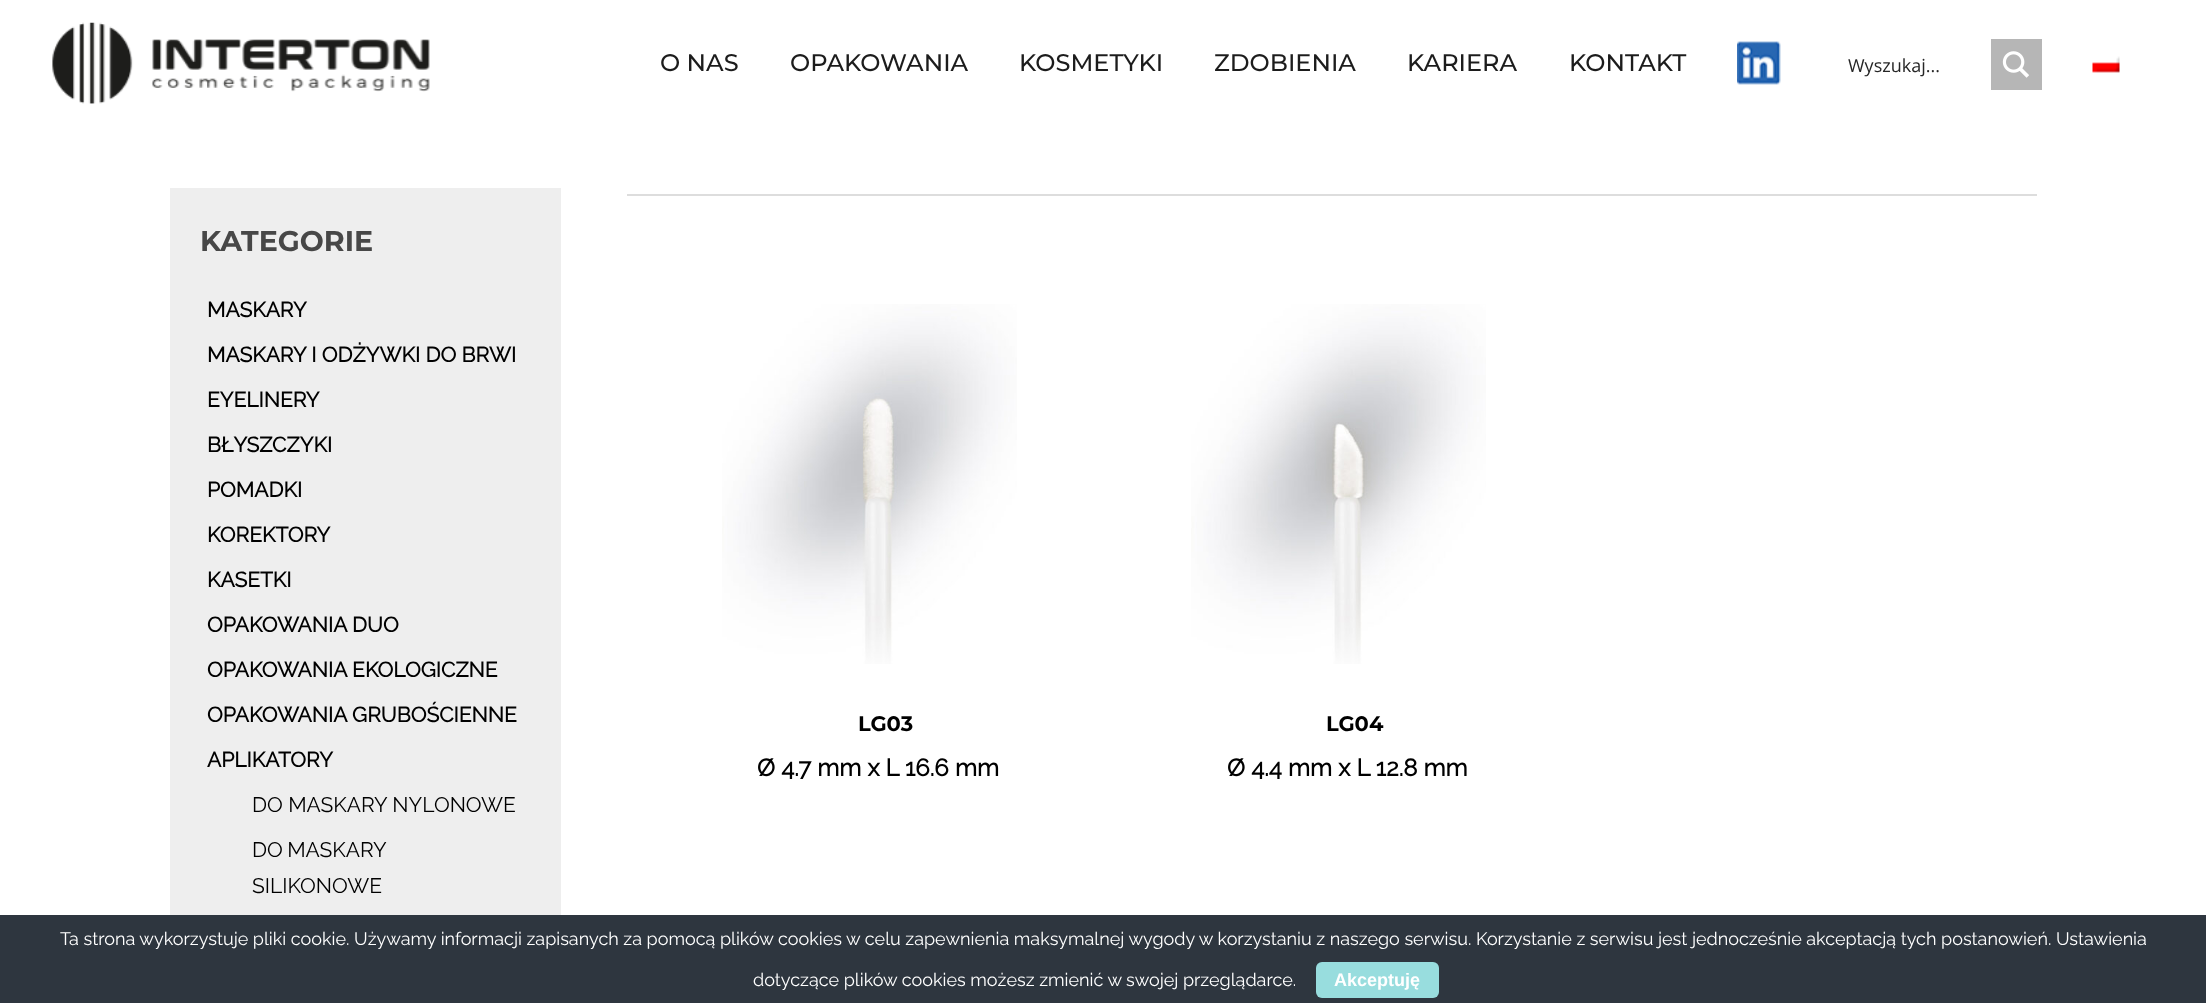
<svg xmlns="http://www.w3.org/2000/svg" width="2206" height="1003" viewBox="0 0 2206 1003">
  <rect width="100%" height="100%" fill="rgb(255,255,255)"/>
  <image x="52" y="22" width="378" height="82" href="pic1.png"/>
  <g font-family="Montserrat" font-size="24" font-weight="500" fill="rgb(28,28,28)">
    <text x="660" y="71">O NAS</text>
    <text x="790" y="71">OPAKOWANIA</text>
    <text x="1019" y="71">KOSMETYKI</text>
    <text x="1214" y="71">ZDOBIENIA</text>
    <text x="1407" y="71">KARIERA</text>
    <text x="1569" y="71">KONTAKT</text>
  </g>
  <image x="1737" y="41" width="44" height="44" href="pic2.png"/>
  <text x="1848" y="72" font-family="Open Sans" font-size="18" fill="rgb(38,38,38)">Wyszukaj...</text>
  <rect x="1991" y="39" width="51" height="51" fill="rgb(182,182,182)"/>
  <image x="2002" y="51" width="27" height="27" href="pic3.png"/>
  <image x="2092" y="56" width="28" height="17" href="pic4.png"/>
  <rect x="170" y="188" width="391" height="727" fill="rgb(238,238,238)"/>
  <text x="200" y="251" font-family="Montserrat" font-size="28.5" font-weight="bold" fill="rgb(71,71,71)">KATEGORIE</text>
  <g font-family="Raleway" font-size="21" font-weight="bold" fill="rgb(0,0,0)">
    <text x="207" y="317">MASKARY</text>
    <text x="207" y="362">MASKARY I ODŻYWKI DO BRWI</text>
    <text x="207" y="407">EYELINERY</text>
    <text x="207" y="452">BŁYSZCZYKI</text>
    <text x="207" y="497">POMADKI</text>
    <text x="207" y="542">KOREKTORY</text>
    <text x="207" y="587">KASETKI</text>
    <text x="207" y="632">OPAKOWANIA DUO</text>
    <text x="207" y="677">OPAKOWANIA EKOLOGICZNE</text>
    <text x="207" y="722">OPAKOWANIA GRUBOŚCIENNE</text>
    <text x="207" y="767">APLIKATORY</text>
  </g>
  <g font-family="Raleway" font-size="21" font-weight="100" fill="rgb(0,0,0)">
    <text x="252" y="812">DO MASKARY NYLONOWE</text>
    <text>
      <tspan x="252" y="857" word-spacing="-1">DO MASKARY</tspan>
      <tspan x="252" y="893">SILIKONOWE</tspan>
    </text>
  </g>
  <rect x="627" y="194" width="1410" height="2" fill="rgb(221,221,221)"/>
  <image x="722" y="304" width="295" height="360" href="pic5.png"/>
  <text x="858" y="731" font-family="Montserrat" font-size="21" font-weight="bold" fill="rgb(0,0,0)">LG03</text>
  <text x="757" y="776" font-family="Raleway" font-size="24" font-weight="bold" fill="rgb(0,0,0)">Ø 4.7 mm x L 16.6 mm</text>
  <image x="1191" y="304" width="295" height="360" href="pic6.png"/>
  <text x="1326" y="731" font-family="Montserrat" font-size="21" font-weight="bold" fill="rgb(0,0,0)">LG04</text>
  <text x="1227" y="776" font-family="Raleway" font-size="24" font-weight="bold" fill="rgb(0,0,0)">Ø 4.4 mm x L 12.8 mm</text>
  <rect x="0" y="915" width="2206" height="88" fill="rgb(46,54,63)"/>
  <g font-family="Raleway" font-size="18" font-weight="100" fill="rgb(255,255,255)">
    <text x="60" y="945">Ta strona wykorzystuje pliki cookie. Używamy informacji zapisanych za pomocą plików cookies w celu zapewnienia maksymalnej wygody w korzystaniu z naszego serwisu. Korzystanie z serwisu jest jednocześnie akceptacją tych postanowień. Ustawienia</text>
    <text x="753" y="986">dotyczące plików cookies możesz zmienić w swojej przeglądarce.</text>
  </g>
  <rect x="1316" y="962" width="123" height="36" rx="6" fill="rgb(152,221,222)"/>
  <text x="1334" y="986" font-family="Liberation Sans" font-size="18" font-weight="bold" fill="rgb(255,255,255)">Akceptuję</text>
</svg>
